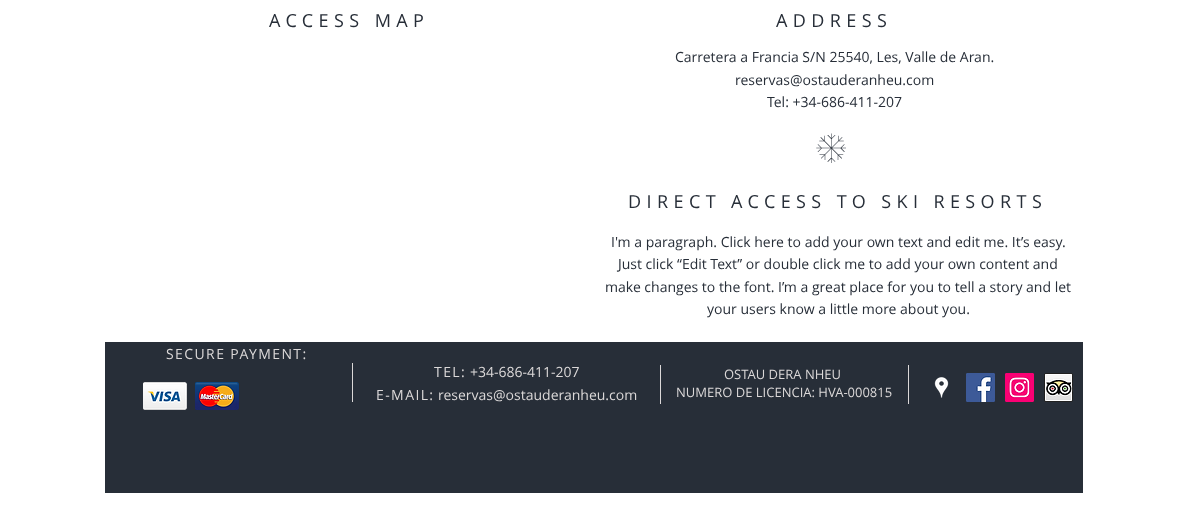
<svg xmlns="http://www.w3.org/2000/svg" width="1187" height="525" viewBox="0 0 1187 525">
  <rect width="100%" height="100%" fill="rgb(255,255,255)"/>
  <g font-family="Open Sans" font-size="18" letter-spacing="5.4" fill="rgb(39,46,56)">
    <text x="269" y="27">ACCESS MAP</text>
    <text x="776" y="27">ADDRESS</text>
  </g>
  <g font-family="Open Sans" font-size="14" fill="rgb(39,46,56)">
    <text x="675" y="62">Carretera a Francia S/N 25540, Les, Valle de Aran.</text>
    <text x="735" y="85">reservas@ostauderanheu.com</text>
    <text x="767" y="107">Tel: +34-686-411-207</text>
  </g>
  <image x="816" y="133" width="30" height="30" href="pic1.png"/>
  <text x="628" y="208" font-family="Open Sans" font-size="18" letter-spacing="5.4" fill="rgb(39,46,56)">DIRECT ACCESS TO SKI RESORTS</text>
  <g font-family="Open Sans" font-size="14" fill="rgb(39,46,56)">
    <text x="611" y="247">I'm a paragraph. Click here to add your own text and edit me. It’s easy.</text>
    <text x="618" y="269">Just click “Edit Text” or double click me to add your own content and</text>
    <text x="605" y="292">make changes to the font. I’m a great place for you to tell a story and let</text>
    <text x="707" y="314">your users know a little more about you.</text>
  </g>
  <rect x="105" y="342" width="978" height="151" fill="rgb(39,46,56)"/>
  <text x="166" y="359" font-family="Open Sans" font-size="14" letter-spacing="1.4" fill="rgb(219,216,216)">SECURE PAYMENT:</text>
  <image x="143" y="382" width="44" height="28" href="pic2.png"/>
  <image x="195" y="382" width="44" height="28" href="pic3.png"/>
  <rect x="352" y="363" width="1" height="39" fill="rgb(219,216,216)"/>
  <text x="434" y="377" font-family="Open Sans" font-size="14" letter-spacing="1.4" fill="rgb(219,216,216)">TEL:</text>
  <text x="470" y="377" font-family="Open Sans" font-size="14" fill="rgb(219,216,216)">+34-686-411-207</text>
  <text x="376" y="400" font-family="Open Sans" font-size="14" letter-spacing="1.4" fill="rgb(219,216,216)">E-MAIL:</text>
  <text x="438" y="400" font-family="Open Sans" font-size="14" fill="rgb(219,216,216)">reservas@ostauderanheu.com</text>
  <rect x="660" y="365" width="1" height="39" fill="rgb(219,216,216)"/>
  <g font-family="Open Sans" font-size="13" fill="rgb(219,216,216)">
    <text x="724" y="379">OSTAU DERA NHEU</text>
    <text x="676" y="397">NUMERO DE LICENCIA: HVA-000815</text>
  </g>
  <rect x="908" y="365" width="1" height="39" fill="rgb(219,216,216)"/>
  <image x="934" y="377" width="15" height="21" href="pic4.png"/>
  <image x="966" y="373" width="29" height="29" href="pic5.png"/>
  <image x="1005" y="373" width="29" height="29" href="pic6.png"/>
  <image x="1044" y="373" width="29" height="29" href="pic7.png"/>
</svg>
